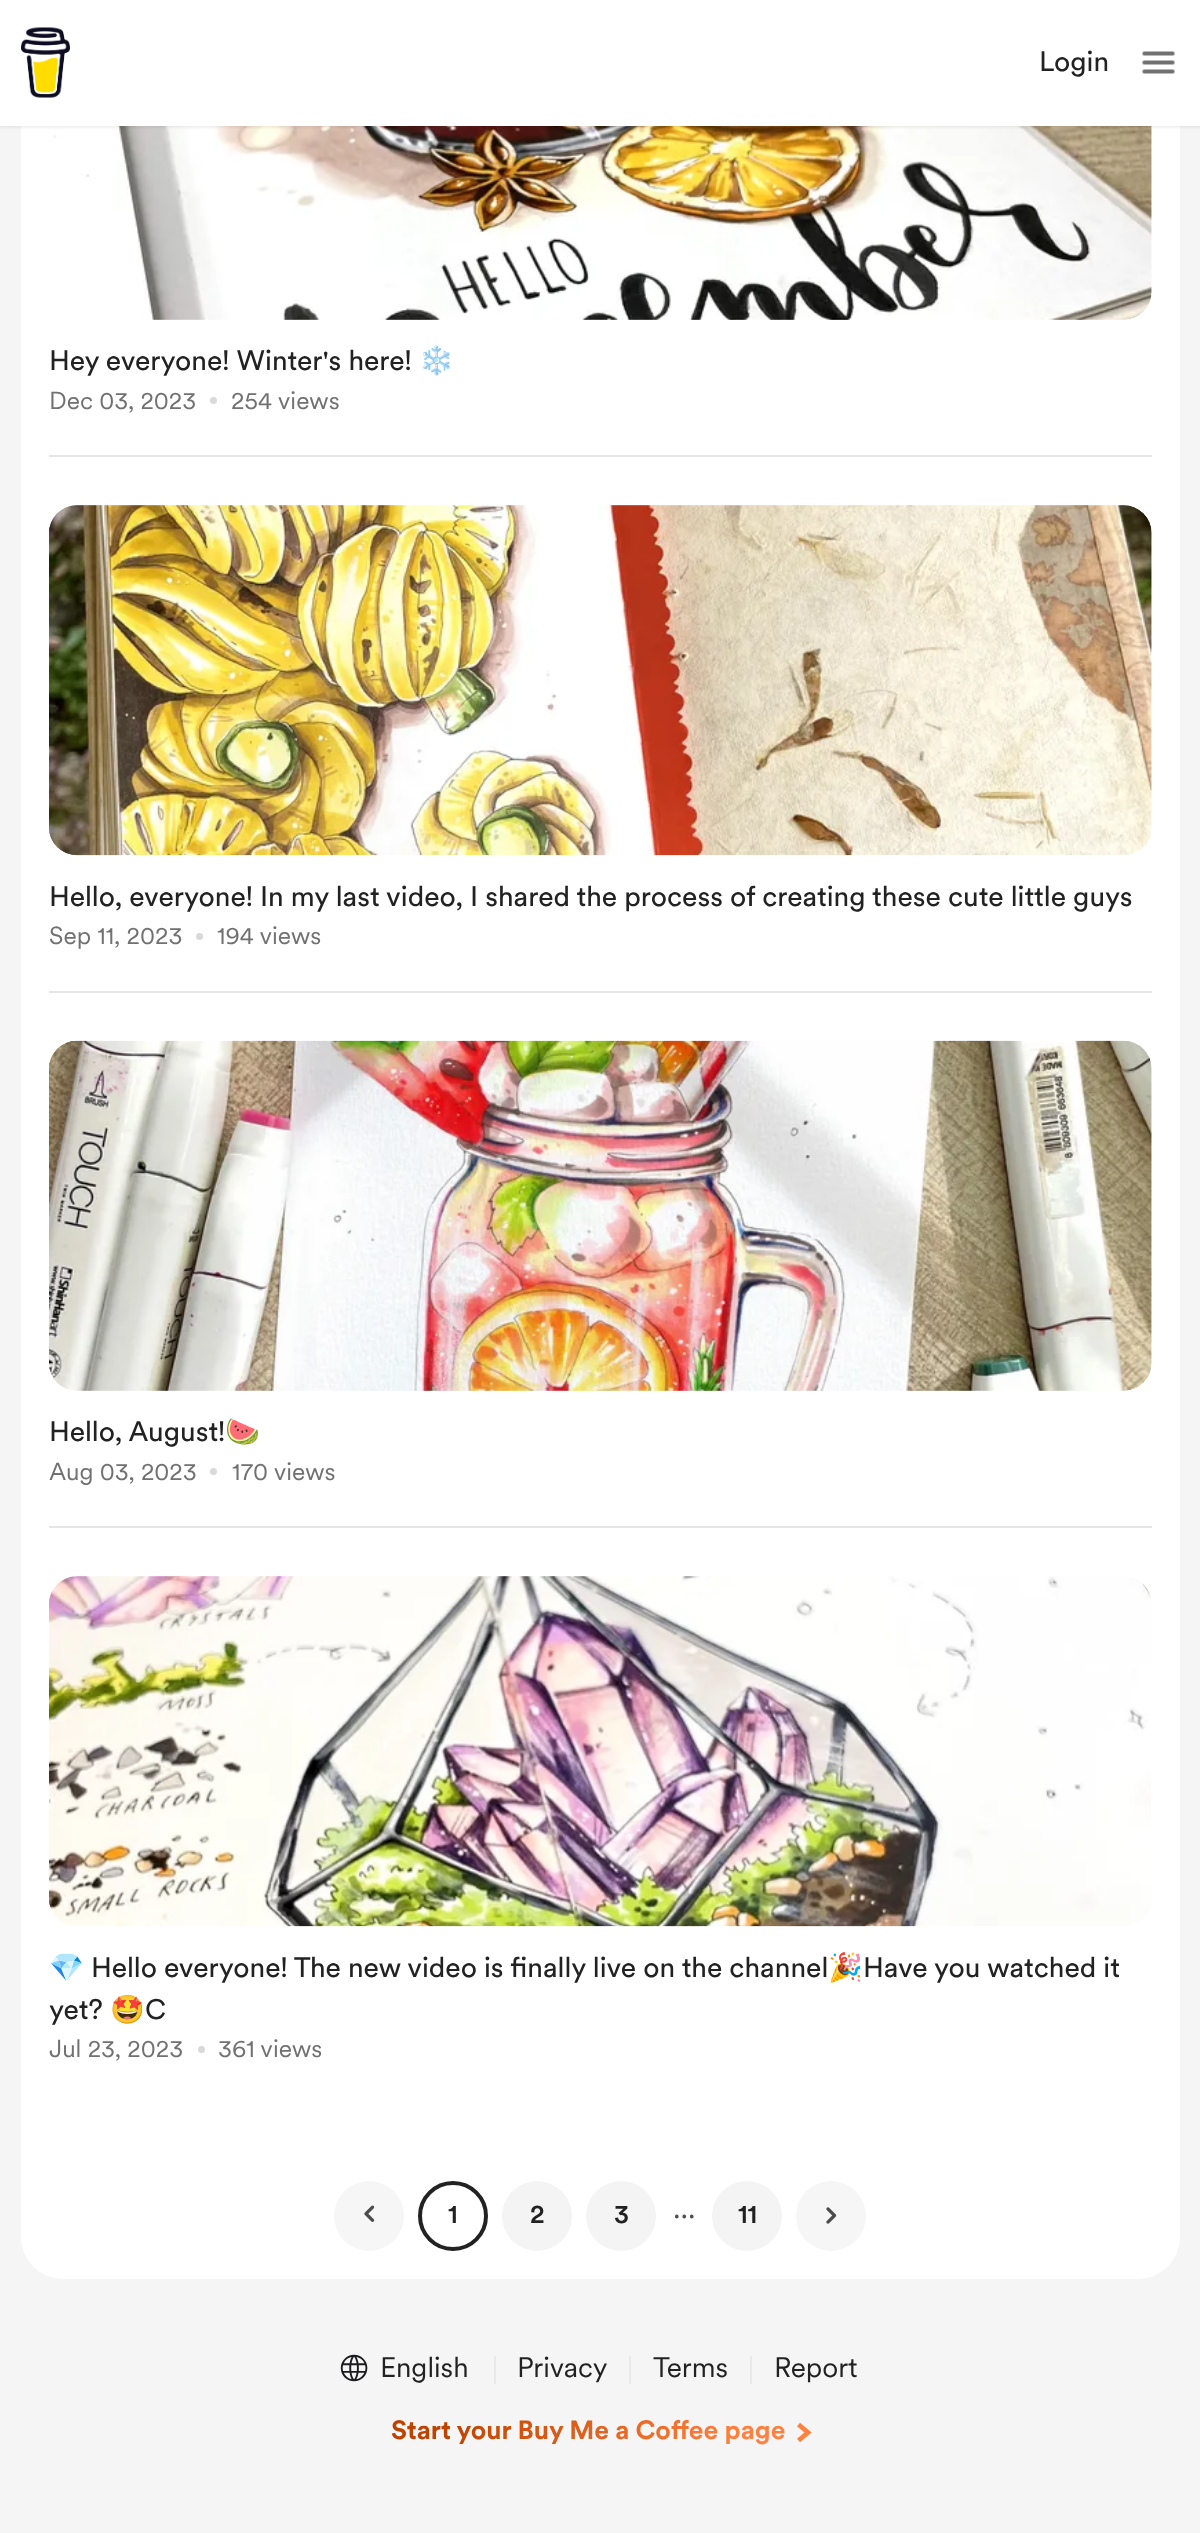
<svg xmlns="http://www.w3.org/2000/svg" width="1200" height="2533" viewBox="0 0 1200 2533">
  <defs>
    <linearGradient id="g1" gradientUnits="userSpaceOnUse" x1="416" y1="2352" x2="785" y2="2509"><stop offset="0.14" stop-color="rgb(191,67,0)"/><stop offset="0.82" stop-color="rgb(255,129,63)"/></linearGradient>
  </defs>
  <rect width="100%" height="100%" fill="rgb(245,245,245)"/>
  <rect x="21" y="-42" width="1159" height="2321" rx="42" fill="rgb(255,255,255)"/>
  <image x="53" y="126" width="1099" height="194" href="pic3.png"/>
  <image x="152" y="126" width="1000" height="194" href="pic4.png"/>
  <rect x="0" y="2" width="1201" height="126" fill="rgba(0,0,0,0.06)" filter="blur(1px)"/>
  <rect x="0" y="0" width="1200" height="126" fill="rgb(255,255,255)"/>
  <image x="21" y="27" width="49" height="71" href="pic1.png"/>
  <text x="1039" y="71" font-family="'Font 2'" font-size="28" fill="rgb(34,34,34)">Login</text>
  <image x="1142" y="51" width="33" height="23" href="pic2.png"/>
  <rect x="49" y="455" width="1103" height="2" fill="rgb(229,229,229)"/>
  <text x="49" y="370" font-family="'Font 2'" font-size="28" fill="rgb(34,34,34)">Hey everyone! Winter's here!</text>
  <text x="419" y="370" font-family="Noto Color Emoji" font-size="28" fill="rgb(34,34,34)">❄️</text>
  <text x="49" y="409" font-family="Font" font-size="24.5" fill="rgb(113,113,113)">Dec 03, 2023</text>
  <circle cx="213.5" cy="400.5" r="3.5" fill="rgb(217,217,217)"/>
  <text x="231" y="409" font-family="Font" font-size="24.5" fill="rgb(113,113,113)">254 views</text>
  <rect x="49" y="991" width="1103" height="2" fill="rgb(229,229,229)"/>
  <image x="49" y="505" width="1103" height="351" href="pic5.png"/>
  <image x="49" y="505" width="1103" height="351" href="pic6.png"/>
  <text x="49" y="906" font-family="'Font 2'" font-size="28" fill="rgb(34,34,34)">Hello, everyone! In my last video, I shared the process of creating these cute little guys</text>
  <text x="49" y="944" font-family="Font" font-size="24.5" fill="rgb(113,113,113)">Sep 11, 2023</text>
  <circle cx="199.5" cy="936.5" r="3.5" fill="rgb(217,217,217)"/>
  <text x="217" y="944" font-family="Font" font-size="24.5" fill="rgb(113,113,113)">194 views</text>
  <rect x="49" y="1526" width="1103" height="2" fill="rgb(229,229,229)"/>
  <image x="49" y="1040" width="1103" height="351" href="pic7.png"/>
  <image x="49" y="1040" width="1103" height="351" href="pic8.png"/>
  <text x="49" y="1441" font-family="'Font 2'" font-size="28" fill="rgb(34,34,34)">Hello, August!</text>
  <text x="225" y="1441" font-family="Noto Color Emoji" font-size="28" fill="rgb(34,34,34)">🍉</text>
  <text x="49" y="1480" font-family="Font" font-size="24.5" fill="rgb(113,113,113)">Aug 03, 2023</text>
  <circle cx="213.5" cy="1471.5" r="3.5" fill="rgb(217,217,217)"/>
  <text x="232" y="1480" font-family="Font" font-size="24.5" fill="rgb(113,113,113)">170 views</text>
  <image x="49" y="1576" width="1102" height="351" href="pic9.png"/>
  <image x="49" y="1576" width="1102" height="351" href="pic10.png"/>
  <text x="49" y="1977" font-family="Noto Color Emoji" font-size="28" fill="rgb(34,34,34)">💎</text>
  <text x="91" y="1977" font-family="'Font 2'" font-size="28" fill="rgb(34,34,34)">Hello everyone! The new video is finally live on the channel</text>
  <text x="828" y="1977" font-family="Noto Color Emoji" font-size="28" fill="rgb(34,34,34)">🎉</text>
  <g font-family="'Font 2'" font-size="28" fill="rgb(34,34,34)">
    <text x="863" y="1977">Have you watched it</text>
    <text x="49" y="2019">yet?</text>
  </g>
  <text x="110" y="2019" font-family="Noto Color Emoji" font-size="28" fill="rgb(34,34,34)">🤩</text>
  <text x="145" y="2019" font-family="'Font 2'" font-size="28" fill="rgb(34,34,34)">C</text>
  <text x="49" y="2057" font-family="Font" font-size="24.5" fill="rgb(113,113,113)">Jul 23, 2023</text>
  <circle cx="201.5" cy="2049.5" r="3.5" fill="rgb(217,217,217)"/>
  <text x="218" y="2057" font-family="Font" font-size="24.5" fill="rgb(113,113,113)">361 views</text>
  <circle cx="369" cy="2216" r="35" fill="rgb(246,246,246)"/>
  <image x="364" y="2205" width="11" height="17" href="pic11.png"/>
  <circle cx="453" cy="2216" r="33" fill="none" stroke="rgb(34,34,34)" stroke-width="4"/>
  <text x="448" y="2223" font-family="Font" font-size="26.25" font-weight="500" fill="rgb(34,34,34)">1</text>
  <circle cx="537" cy="2216" r="35" fill="rgb(244,244,244)"/>
  <text x="530" y="2223" font-family="Font" font-size="26.25" font-weight="500" fill="rgb(34,34,34)">2</text>
  <circle cx="621" cy="2216" r="35" fill="rgb(244,244,244)"/>
  <text x="614" y="2223" font-family="Font" font-size="26.25" font-weight="500" fill="rgb(34,34,34)">3</text>
  <text x="673" y="2218" font-family="Noto Sans" font-size="28" fill="rgb(78,78,78)">...</text>
  <circle cx="747" cy="2216" r="35" fill="rgb(244,244,244)"/>
  <text x="738" y="2223" font-family="Font" font-size="26.25" font-weight="500" fill="rgb(34,34,34)">11</text>
  <circle cx="831" cy="2216" r="35" fill="rgb(246,246,246)"/>
  <image x="826" y="2207" width="11" height="17" href="pic12.png"/>
  <image x="340" y="2354" width="28" height="28" href="pic13.png"/>
  <text x="380" y="2377" font-family="Font" font-size="28" fill="rgb(34,34,34)">English</text>
  <rect x="494" y="2356" width="2" height="28" fill="rgb(232,232,232)"/>
  <text x="517" y="2377" font-family="Font" font-size="28" fill="rgb(34,34,34)">Privacy</text>
  <rect x="629" y="2356" width="2" height="28" fill="rgb(232,232,232)"/>
  <text x="653" y="2377" font-family="Font" font-size="28" fill="rgb(34,34,34)">Terms</text>
  <rect x="750" y="2356" width="2" height="28" fill="rgb(232,232,232)"/>
  <text x="774" y="2377" font-family="Font" font-size="28" fill="rgb(34,34,34)">Report</text>
  <text x="391" y="2439" font-family="Font" font-size="26.25" font-weight="bold" fill="url(#g1)">Start your Buy Me a Coffee page</text>
  <path d="M798.5 2424.5L808 2432.5L798.5 2440.5" fill="none" stroke="rgb(255,129,63)" stroke-width="4.7"/>
</svg>
